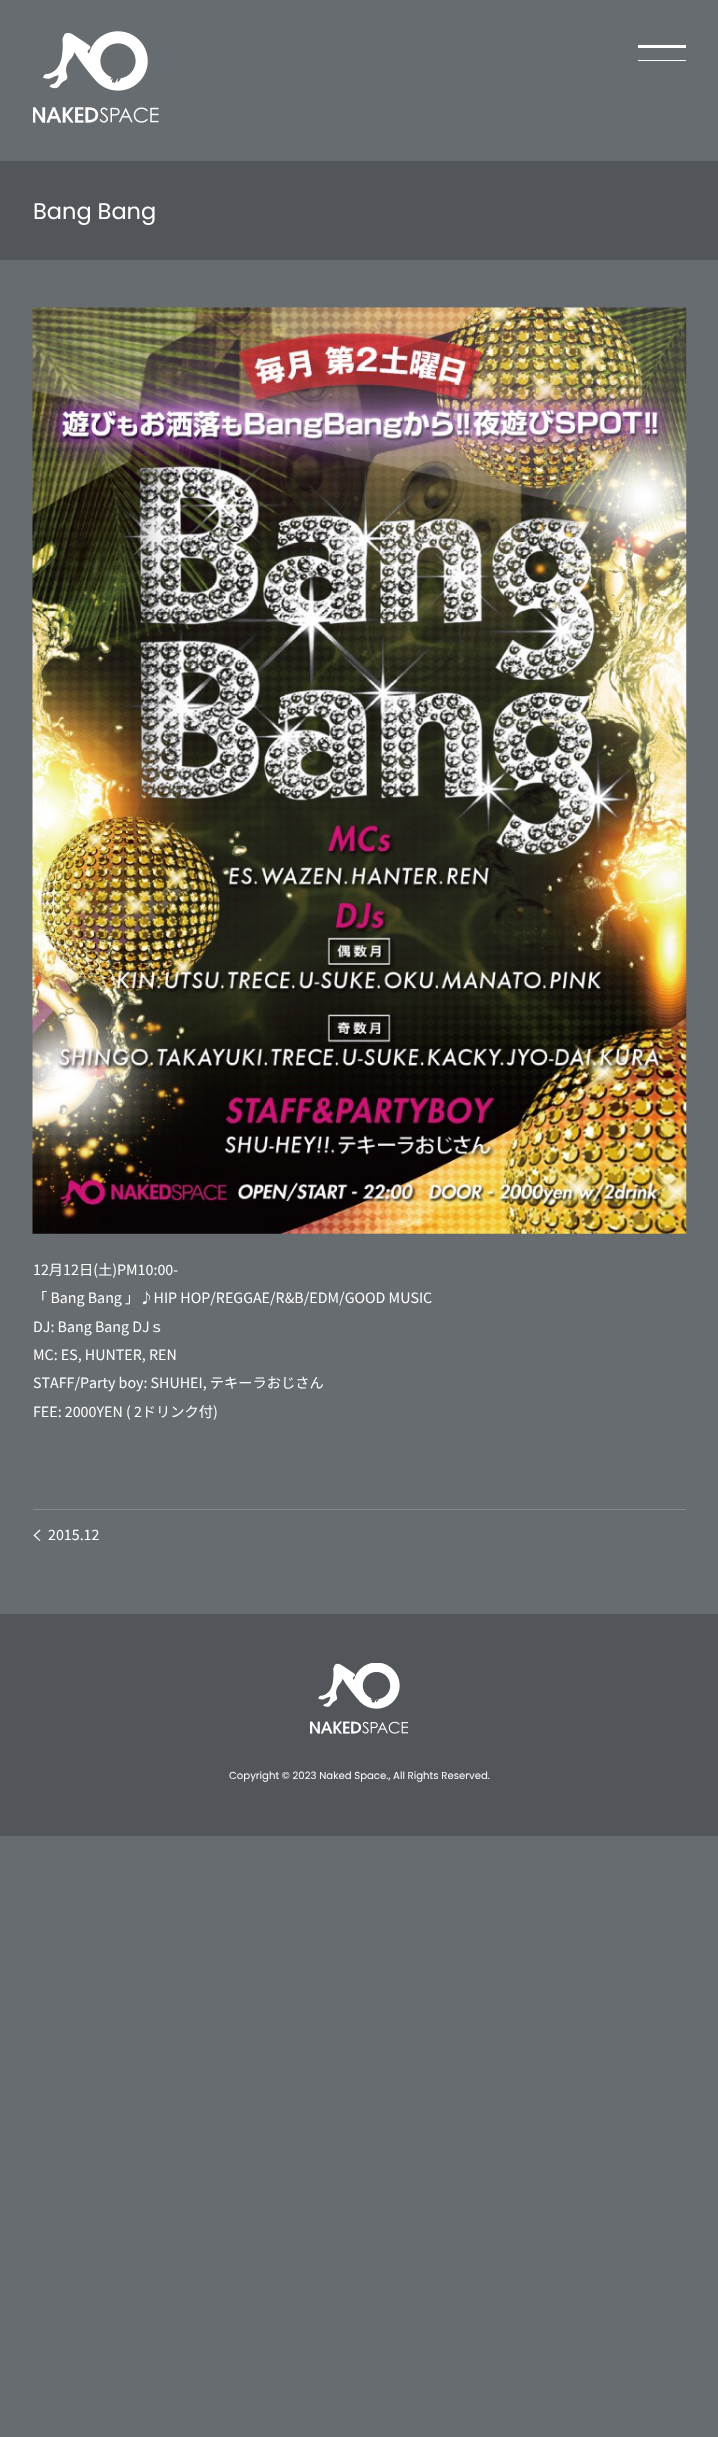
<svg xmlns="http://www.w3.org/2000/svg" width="718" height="2437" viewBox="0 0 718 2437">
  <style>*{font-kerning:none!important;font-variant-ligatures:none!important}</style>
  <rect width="100%" height="100%" fill="rgb(103,108,112)"/>
  <rect x="638" y="45" width="48" height="3" fill="rgb(255,255,255)"/>
  <rect x="638" y="60" width="48" height="1" fill="rgb(255,255,255)"/>
  <image x="33" y="31" width="126" height="92" href="pic1.png"/>
  <rect x="0" y="161" width="718" height="99" fill="rgb(82,86,90)"/>
  <text x="33" y="219" font-family="Poppins" font-size="22.5" fill="rgb(255,255,255)">Bang Bang</text>
  <image x="32" y="307" width="655" height="927" href="pic2.png"/>
  <g font-family="Noto Sans JP" font-size="14.25" fill="rgb(255,255,255)">
    <text>
      <tspan x="33" y="1275">12月12日(土)PM10:00-</tspan>
      <tspan x="33" y="1303">「 Bang Bang 」♪HIP HOP/REGGAE/R&amp;B/EDM/GOOD MUSIC</tspan>
    </text>
    <text>
      <tspan x="33" y="1332">DJ: Bang Bang DJｓ</tspan>
      <tspan x="33" y="1360">MC: ES, HUNTER, REN</tspan>
      <tspan x="33" y="1388">STAFF/Party boy: SHUHEI, テキーラおじさん</tspan>
    </text>
    <text x="33" y="1417">FEE: 2000YEN ( 2ドリンク付)</text>
  </g>
  <rect x="33" y="1509" width="653" height="1" fill="rgb(133,137,141)"/>
  <path d="M34.5 1534.5L40.5 1540.5L39.5 1541L33.5 1535.5Z" fill="rgb(255,255,255)"/>
  <path d="M39.5 1529.5L40.5 1530.5L34.5 1536L33.5 1535.5Z" fill="rgb(255,255,255)"/>
  <text x="48" y="1540" font-family="Noto Sans JP" font-size="14.25" fill="rgb(255,255,255)">2015.12</text>
  <rect x="0" y="1614" width="718" height="222" fill="rgb(82,86,90)"/>
  <image x="310" y="1663" width="99" height="71" href="pic3.png"/>
  <text x="229" y="1779" font-family="Poppins" font-size="10.15" fill="rgb(255,255,255)">Copyright © 2023 Naked Space., All Rights Reserved.</text>
</svg>
